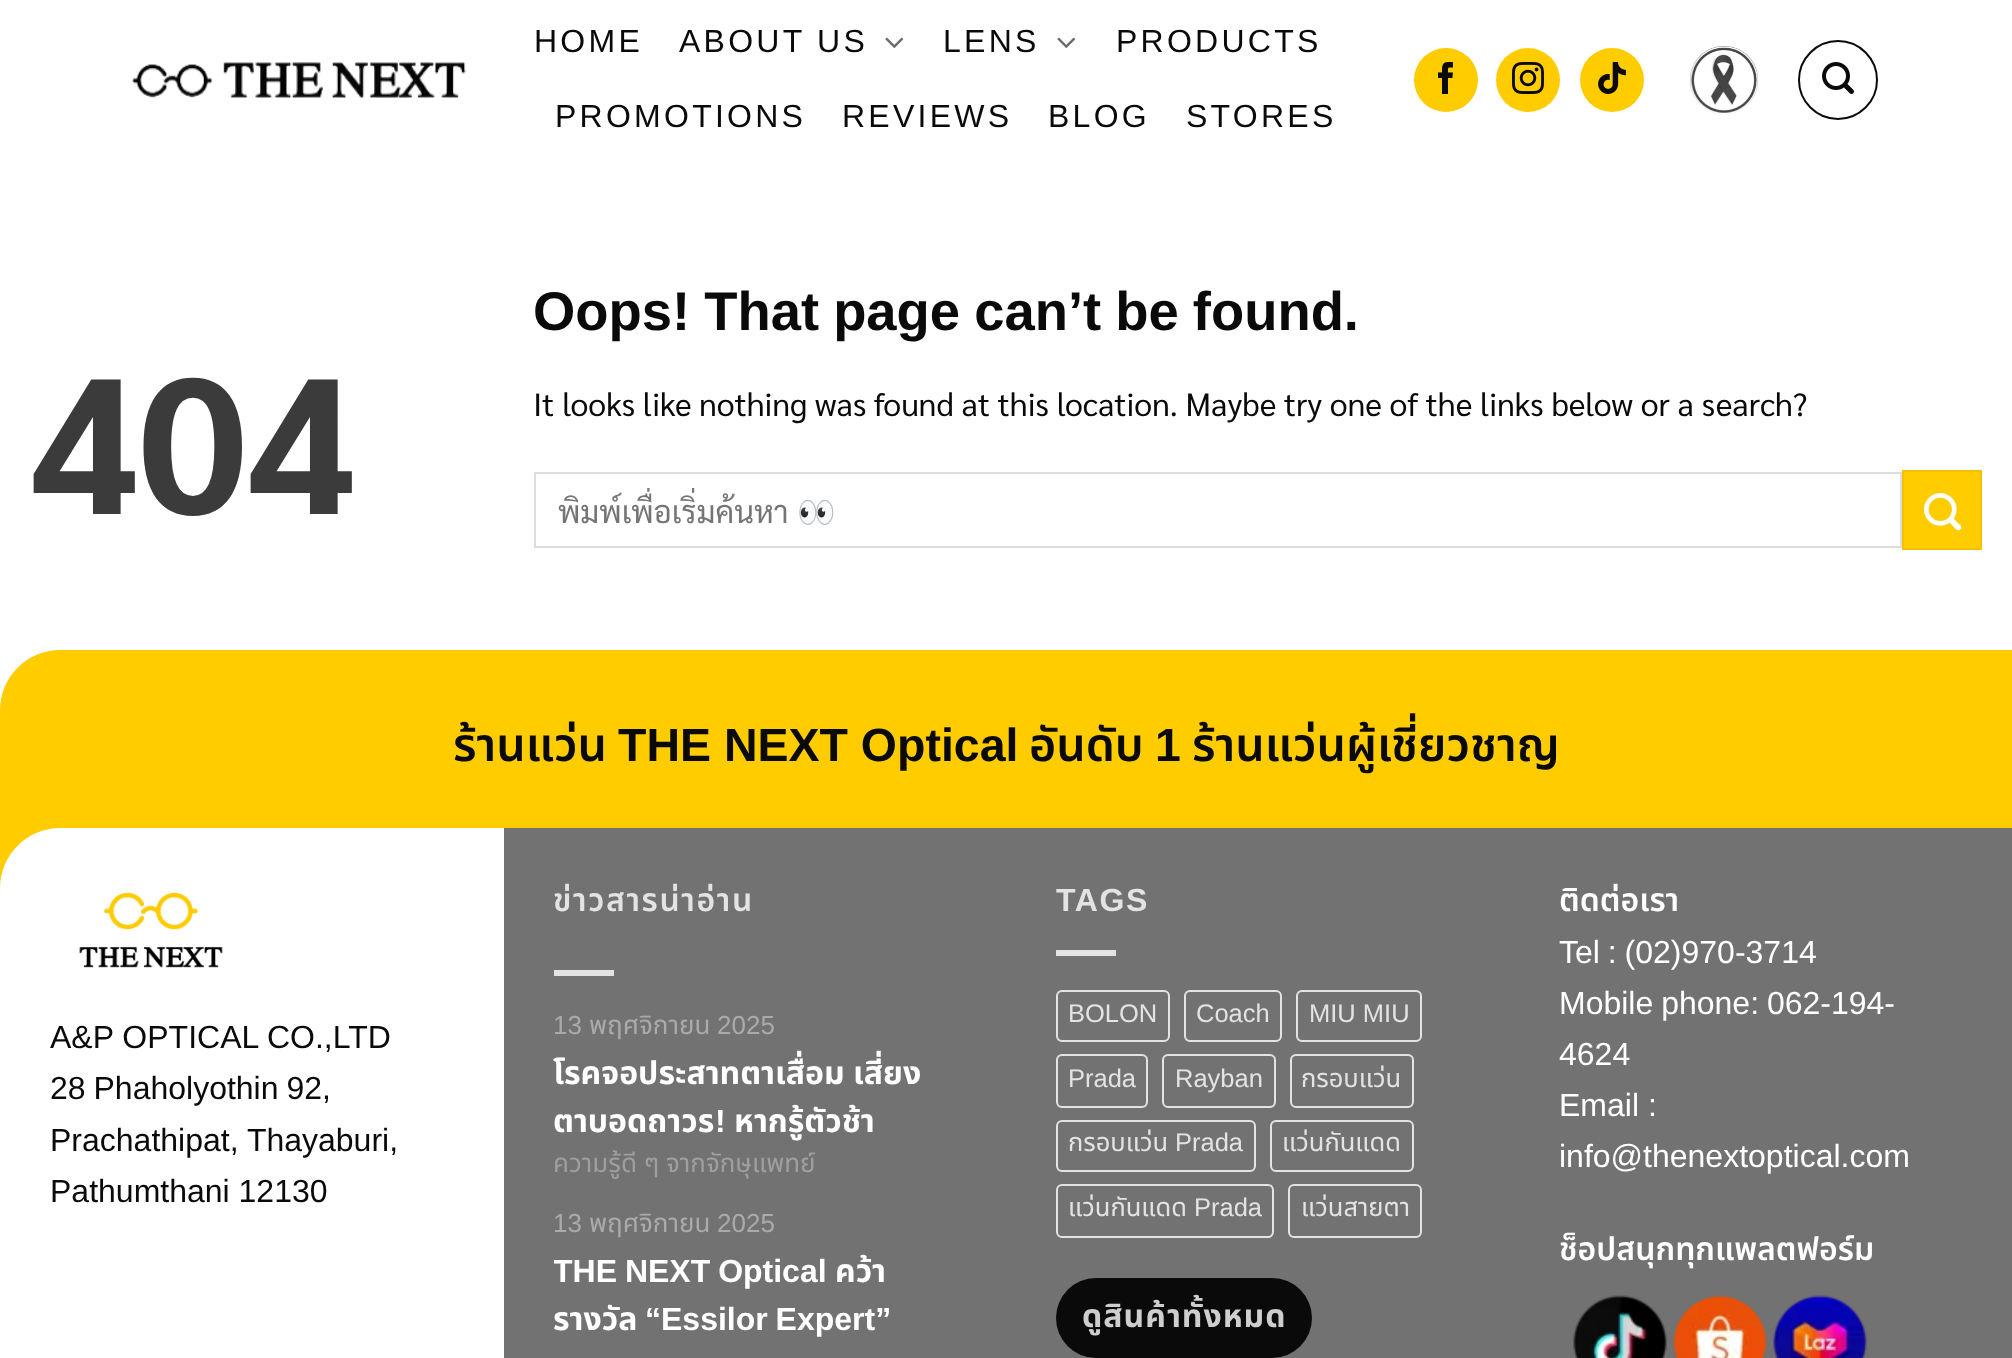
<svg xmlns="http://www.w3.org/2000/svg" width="2012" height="1358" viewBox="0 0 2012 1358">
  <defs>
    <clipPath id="clip1"><rect x="558" y="488" width="1312" height="42"/></clipPath>
    <clipPath id="clip2"><rect x="554" y="1206" width="402" height="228"/></clipPath>
  </defs>
  <rect width="100%" height="100%" fill="rgb(255,255,255)"/>
  <image x="132" y="62" width="334" height="36" href="pic1.png"/>
  <g font-family="Liberation Sans" font-size="32" letter-spacing="3.25" fill="rgb(10,10,10)">
    <text x="534" y="52">HOME</text>
    <text x="679" y="52">ABOUT US</text>
  </g>
  <image x="885" y="37" width="19" height="11" href="pic2.png"/>
  <text x="943" y="52" font-family="Liberation Sans" font-size="32" letter-spacing="3.25" fill="rgb(10,10,10)">LENS</text>
  <image x="1057" y="37" width="19" height="11" href="pic2.png"/>
  <g font-family="Liberation Sans" font-size="32" letter-spacing="3.25" fill="rgb(10,10,10)">
    <text x="1116" y="52">PRODUCTS</text>
    <text x="555" y="127">PROMOTIONS</text>
    <text x="842" y="127">REVIEWS</text>
    <text x="1048" y="127">BLOG</text>
    <text x="1186" y="127">STORES</text>
  </g>
  <circle cx="1446" cy="80" r="32" fill="rgb(255,204,0)"/>
  <image x="1438" y="62" width="15" height="32" href="pic3.png"/>
  <circle cx="1528" cy="80" r="32" fill="rgb(255,204,0)"/>
  <image x="1512" y="62" width="32" height="32" href="pic4.png"/>
  <circle cx="1612" cy="80" r="32" fill="rgb(255,204,0)"/>
  <image x="1598" y="62" width="28" height="32" href="pic5.png"/>
  <image x="1689" y="46" width="69" height="68" href="pic6.png"/>
  <circle cx="1838" cy="80" r="39" fill="none" stroke="rgb(10,10,10)" stroke-width="2"/>
  <image x="1822" y="62" width="32" height="32" href="pic7.png"/>
  <text x="30" y="514" font-family="Sarabun" font-size="192" font-weight="bold" fill="rgb(59,59,59)">404</text>
  <text x="533" y="330" word-spacing="-1" font-family="Liberation Sans" font-size="54.4" font-weight="bold" fill="rgb(10,10,10)">Oops! That page can’t be found.</text>
  <text x="533" y="416" font-family="Sarabun" font-size="32" fill="rgb(10,10,10)">It looks like nothing was found at this location. Maybe try one of the links below or a search?</text>
  <rect x="535" y="473" width="1366" height="74" fill="none" stroke="rgb(221,221,221)" stroke-width="2"/>
  <g clip-path="url(#clip1)">
    <text x="558" y="523" font-family="Sarabun" font-size="31" fill="rgb(117,117,117)">พิมพ์เพื่อเริ่มค้นหา</text>
  </g>
  <text x="797" y="523" font-family="Noto Color Emoji" font-size="31" fill="rgb(117,117,117)">👀</text>
  <rect x="1903" y="471" width="78" height="78" fill="rgb(255,204,0)" stroke="rgb(242,194,0)" stroke-width="2"/>
  <image x="1924" y="493" width="38" height="38" href="pic8.png"/>
  <path d="M60 650H2012V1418H0V710C0 677 27 650 60 650Z" fill="rgb(255,204,0)"/>
  <text x="453" y="761" font-family="Noto Sans Thai" font-size="46.5" font-weight="600" fill="rgb(10,10,10)">ร้านแว่น</text>
  <text x="618" y="761" font-family="Liberation Sans" font-size="46.5" font-weight="bold" fill="rgb(10,10,10)">THE NEXT Optical</text>
  <text x="1029" y="761" font-family="Noto Sans Thai" font-size="46.5" font-weight="600" fill="rgb(10,10,10)">อันดับ</text>
  <text x="1155" y="761" font-family="Liberation Sans" font-size="46.5" font-weight="bold" fill="rgb(10,10,10)">1</text>
  <text x="1192" y="761" font-family="Noto Sans Thai" font-size="46.5" font-weight="600" fill="rgb(10,10,10)">ร้านแว่นผู้เชี่ยวชาญ</text>
  <path d="M60 828H504V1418H0V888C0 855 27 828 60 828Z" fill="rgb(255,255,255)"/>
  <image x="79" y="892" width="144" height="76" href="pic9.png"/>
  <g font-family="Liberation Sans" font-size="32" fill="rgb(10,10,10)">
    <text>
      <tspan x="50" y="1048">A&amp;P OPTICAL CO.,LTD</tspan>
      <tspan x="50" y="1099" word-spacing="-1">28 Phaholyothin 92,</tspan>
      <tspan x="50" y="1151">Prachathipat, Thayaburi,</tspan>
      <tspan x="50" y="1202">Pathumthani 12130</tspan>
    </text>
  </g>
  <rect x="504" y="828" width="1508" height="530" fill="rgb(114,114,114)"/>
  <text x="553" y="911" font-family="Noto Sans Thai" font-size="32" font-weight="600" letter-spacing="1.6" fill="rgb(227,227,227)">ข่าวสารน่าอ่าน</text>
  <rect x="554" y="970" width="60" height="6" fill="rgb(227,227,227)"/>
  <text x="553" y="1034" font-family="Liberation Sans" font-size="26" fill="rgb(170,170,170)">13</text>
  <text x="589" y="1034" font-family="Noto Sans Thai" font-size="26" fill="rgb(170,170,170)">พฤศจิกายน</text>
  <text x="717" y="1034" font-family="Liberation Sans" font-size="26" fill="rgb(170,170,170)">2025</text>
  <g font-family="Noto Sans Thai" font-size="32" font-weight="bold" fill="rgb(255,255,255)">
    <text>
      <tspan x="553" y="1084">โรคจอประสาทตาเสื่อม เสี่ยง</tspan>
      <tspan x="553" y="1132">ตาบอดถาวร</tspan>
    </text>
  </g>
  <text x="715" y="1132" font-family="Liberation Sans" font-size="32" font-weight="bold" fill="rgb(255,255,255)">!</text>
  <text x="734" y="1132" font-family="Noto Sans Thai" font-size="32" font-weight="bold" fill="rgb(255,255,255)">หากรู้ตัวช้า</text>
  <text x="553" y="1172" font-family="Noto Sans Thai" font-size="26" fill="rgb(159,159,159)">ความรู้ดี ๆ จากจักษุแพทย์</text>
  <text x="553" y="1232" font-family="Liberation Sans" font-size="26" fill="rgb(170,170,170)">13</text>
  <text x="589" y="1232" font-family="Noto Sans Thai" font-size="26" fill="rgb(170,170,170)">พฤศจิกายน</text>
  <text x="717" y="1232" font-family="Liberation Sans" font-size="26" fill="rgb(170,170,170)">2025</text>
  <g clip-path="url(#clip2)">
    <text x="553" y="1282" word-spacing="-1" font-family="Liberation Sans" font-size="32" font-weight="bold" fill="rgb(255,255,255)">THE NEXT Optical</text>
  </g>
  <g font-family="Noto Sans Thai" font-size="32" font-weight="bold" fill="rgb(255,255,255)">
    <text x="835" y="1282">คว้า</text>
    <text x="553" y="1330">รางวัล</text>
  </g>
  <text x="645" y="1330" word-spacing="-1" font-family="Liberation Sans" font-size="32" font-weight="bold" fill="rgb(255,255,255)">“Essilor Expert”</text>
  <text x="1056" y="911" font-family="Liberation Sans" font-size="32" font-weight="bold" letter-spacing="1.6" fill="rgb(227,227,227)">TAGS</text>
  <rect x="1056" y="950" width="60" height="6" fill="rgb(227,227,227)"/>
  <rect x="1057" y="991" width="112" height="50" rx="5" fill="none" stroke="rgb(227,227,227)" stroke-width="2"/>
  <text x="1068" y="1022" font-family="Liberation Sans" font-size="25.5" fill="rgb(227,227,227)">BOLON</text>
  <rect x="1185" y="991" width="96" height="50" rx="5" fill="none" stroke="rgb(227,227,227)" stroke-width="2"/>
  <text x="1196" y="1022" font-family="Liberation Sans" font-size="25.5" fill="rgb(227,227,227)">Coach</text>
  <rect x="1297" y="991" width="124" height="50" rx="5" fill="none" stroke="rgb(227,227,227)" stroke-width="2"/>
  <text x="1309" y="1022" font-family="Liberation Sans" font-size="25.5" fill="rgb(227,227,227)">MIU MIU</text>
  <rect x="1057" y="1055" width="90" height="52" rx="5" fill="none" stroke="rgb(227,227,227)" stroke-width="2"/>
  <text x="1068" y="1087" font-family="Liberation Sans" font-size="25.5" fill="rgb(227,227,227)">Prada</text>
  <rect x="1163" y="1055" width="112" height="52" rx="5" fill="none" stroke="rgb(227,227,227)" stroke-width="2"/>
  <text x="1175" y="1087" font-family="Liberation Sans" font-size="25.5" fill="rgb(227,227,227)">Rayban</text>
  <rect x="1291" y="1055" width="122" height="52" rx="5" fill="none" stroke="rgb(227,227,227)" stroke-width="2"/>
  <text x="1301" y="1087" font-family="Noto Sans Thai" font-size="25.5" fill="rgb(227,227,227)">กรอบแว่น</text>
  <rect x="1057" y="1121" width="198" height="50" rx="5" fill="none" stroke="rgb(227,227,227)" stroke-width="2"/>
  <text x="1068" y="1151" font-family="Noto Sans Thai" font-size="25.5" fill="rgb(227,227,227)">กรอบแว่น</text>
  <text x="1175" y="1151" font-family="Liberation Sans" font-size="25.5" fill="rgb(227,227,227)">Prada</text>
  <rect x="1271" y="1121" width="142" height="50" rx="5" fill="none" stroke="rgb(227,227,227)" stroke-width="2"/>
  <text x="1282" y="1151" font-family="Noto Sans Thai" font-size="25.5" fill="rgb(227,227,227)">แว่นกันแดด</text>
  <rect x="1057" y="1185" width="216" height="52" rx="5" fill="none" stroke="rgb(227,227,227)" stroke-width="2"/>
  <text x="1068" y="1216" font-family="Noto Sans Thai" font-size="25.5" fill="rgb(227,227,227)">แว่นกันแดด</text>
  <text x="1194" y="1216" font-family="Liberation Sans" font-size="25.5" fill="rgb(227,227,227)">Prada</text>
  <rect x="1289" y="1185" width="132" height="52" rx="5" fill="none" stroke="rgb(227,227,227)" stroke-width="2"/>
  <text x="1301" y="1216" font-family="Noto Sans Thai" font-size="25.5" fill="rgb(227,227,227)">แว่นสายตา</text>
  <rect x="1056" y="1278" width="256" height="80" rx="40" fill="rgb(10,10,10)"/>
  <text x="1082" y="1327" font-family="Noto Sans Thai" font-size="32" font-weight="bold" letter-spacing="1" fill="rgb(206,206,206)">ดูสินค้าทั้งหมด</text>
  <text x="1559" y="911" font-family="Noto Sans Thai" font-size="32" font-weight="600" fill="rgb(255,255,255)">ติดต่อเรา</text>
  <g font-family="Liberation Sans" font-size="32" fill="rgb(255,255,255)">
    <text>
      <tspan x="1559" y="963" word-spacing="-1">Tel : (02)970-3714</tspan>
      <tspan x="1559" y="1014" word-spacing="-1">Mobile phone: 062-194-</tspan>
      <tspan x="1559" y="1065">4624</tspan>
      <tspan x="1559" y="1116">Email :</tspan>
      <tspan x="1559" y="1167">info@thenextoptical.com</tspan>
    </text>
  </g>
  <text x="1559" y="1260" font-family="Noto Sans Thai" font-size="32" font-weight="600" fill="rgb(255,255,255)">ช็อปสนุกทุกแพลตฟอร์ม</text>
  <image x="1573" y="1295" width="94" height="63" href="pic10.png"/>
  <image x="1673" y="1295" width="94" height="63" href="pic11.png"/>
  <image x="1773" y="1295" width="94" height="63" href="pic12.png"/>
</svg>
